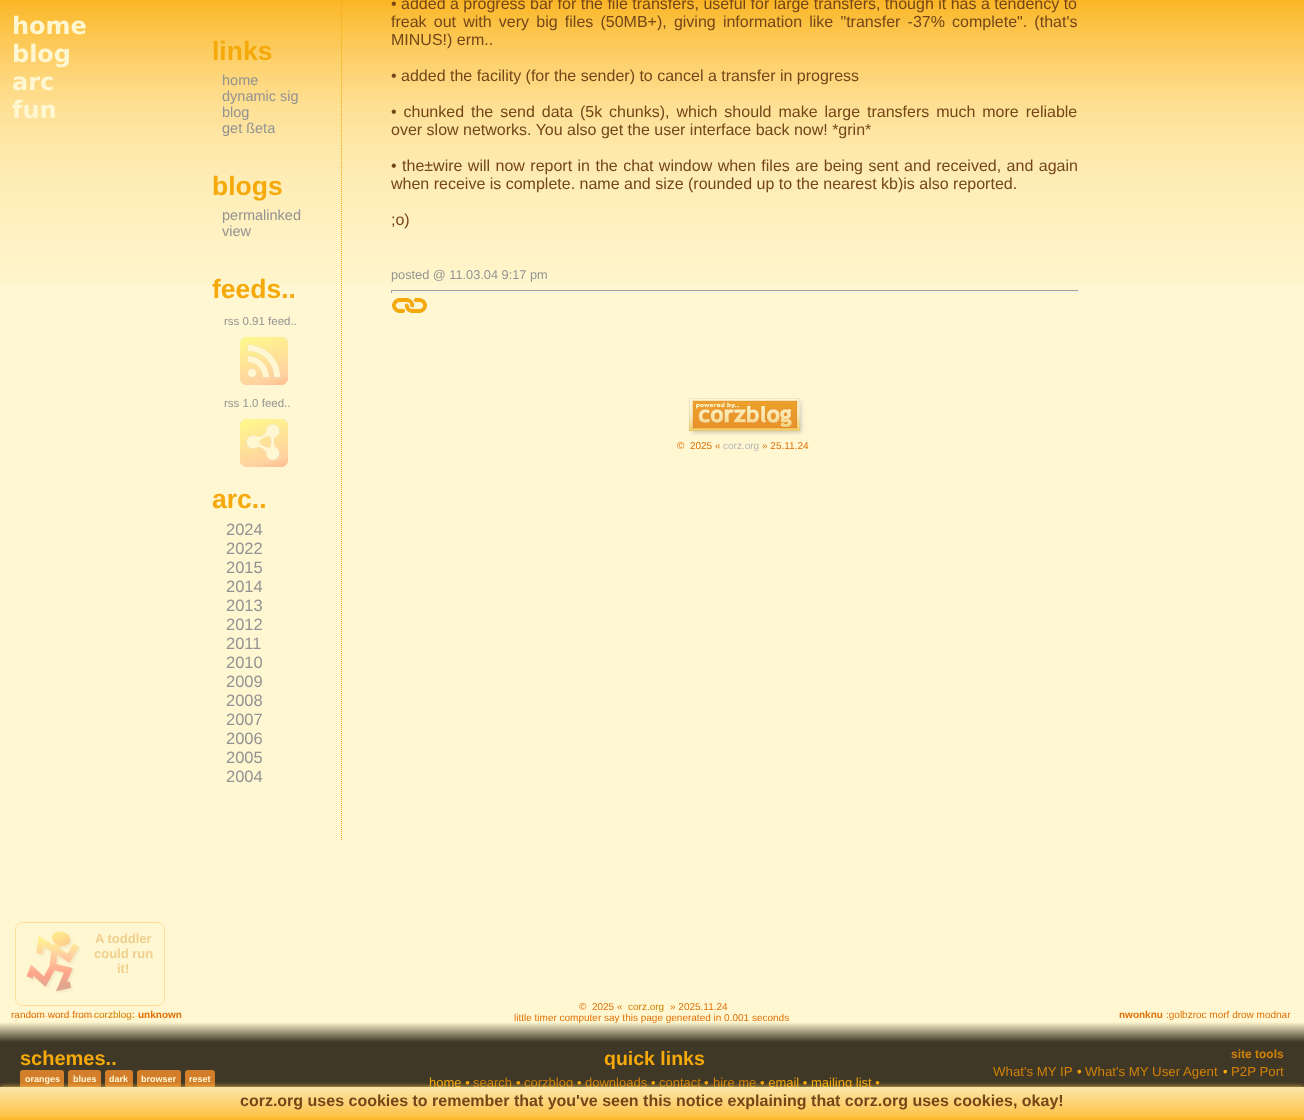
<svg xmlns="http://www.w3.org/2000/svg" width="1304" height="1120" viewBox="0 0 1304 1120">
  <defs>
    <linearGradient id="g1" gradientUnits="userSpaceOnUse" x1="652" y1="1022" x2="652" y2="1042"><stop offset="0" stop-color="rgb(255,247,209)"/><stop offset="1" stop-color="rgb(64,56,38)"/></linearGradient>
    <linearGradient id="g2" gradientUnits="userSpaceOnUse" x1="652" y1="1087" x2="652" y2="1120"><stop offset="0" stop-color="rgb(249,231,170)"/><stop offset="0.85" stop-color="rgb(255,196,77)"/><stop offset="1" stop-color="rgb(251,182,39)"/></linearGradient>
  </defs>
  <rect width="100%" height="100%" fill="rgb(255,247,209)"/>
  <image x="0" y="0" width="1304" height="284" href="pic1.png"/>
  <g font-family="DejaVu Sans" font-size="24" font-weight="bold" fill="rgb(255,247,209)">
    <text>
      <tspan x="12" y="34">home</tspan>
      <tspan x="12" y="62">blog</tspan>
      <tspan x="12" y="90">arc</tspan>
      <tspan x="12" y="118">fun</tspan>
    </text>
  </g>
  <path d="M341.5-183V841" fill="none" stroke="rgb(245,169,10)" stroke-dasharray="1 1"/>
  <text x="212" y="60" font-family="Liberation Sans" font-size="26.5" font-weight="bold" fill="rgb(245,169,10)">links</text>
  <g font-family="Liberation Sans" font-size="14.5" fill="rgb(147,147,147)">
    <text>
      <tspan x="222" y="85">home</tspan>
      <tspan x="222" y="101">dynamic sig</tspan>
      <tspan x="222" y="117">blog</tspan>
      <tspan x="222" y="133">get ßeta</tspan>
    </text>
  </g>
  <text x="212" y="195" font-family="Liberation Sans" font-size="26.5" font-weight="bold" fill="rgb(245,169,10)">blogs</text>
  <g font-family="Liberation Sans" font-size="14.5" fill="rgb(147,147,147)">
    <text>
      <tspan x="222" y="220">permalinked</tspan>
      <tspan x="222" y="236">view</tspan>
    </text>
  </g>
  <text x="212" y="298" font-family="Liberation Sans" font-size="26.5" font-weight="bold" fill="rgb(245,169,10)">feeds..</text>
  <text x="224" y="325" font-family="Liberation Sans" font-size="11.5" fill="rgb(147,147,147)">rss 0.91 feed..</text>
  <image x="240" y="337" width="48" height="48" href="pic2.png"/>
  <text x="224" y="407" font-family="Liberation Sans" font-size="11.5" fill="rgb(147,147,147)">rss 1.0 feed..</text>
  <image x="240" y="419" width="48" height="48" href="pic3.png"/>
  <text x="212" y="508" font-family="Liberation Sans" font-size="26.5" font-weight="bold" fill="rgb(245,169,10)">arc..</text>
  <g font-family="Liberation Sans" font-size="16.5" fill="rgb(147,147,147)">
    <text>
      <tspan x="226" y="535">2024</tspan>
      <tspan x="226" y="554">2022</tspan>
      <tspan x="226" y="573">2015</tspan>
      <tspan x="226" y="592">2014</tspan>
      <tspan x="226" y="611">2013</tspan>
      <tspan x="226" y="630">2012</tspan>
      <tspan x="226" y="649">2011</tspan>
      <tspan x="226" y="668">2010</tspan>
      <tspan x="226" y="687">2009</tspan>
      <tspan x="226" y="706">2008</tspan>
      <tspan x="226" y="725">2007</tspan>
      <tspan x="226" y="744">2006</tspan>
      <tspan x="226" y="763">2005</tspan>
      <tspan x="226" y="782">2004</tspan>
    </text>
  </g>
  <g font-family="Liberation Sans" font-size="16" fill="rgb(116,70,25)">
    <text>
      <tspan x="391" y="9">• added a progress bar for the file transfers, useful for large transfers, though it has a tendency to</tspan>
      <tspan x="391" y="27" word-spacing="2.75">freak out with very big files (50MB+), giving information like "transfer -37% complete". (that's</tspan>
      <tspan x="391" y="45">MINUS!) erm..</tspan>
    </text>
    <text x="391" y="81">• added the facility (for the sender) to cancel a transfer in progress</text>
    <text>
      <tspan x="391" y="117" word-spacing="2.5">• chunked the send data (5k chunks), which should make large transfers much more reliable</tspan>
      <tspan x="391" y="135">over slow networks. You also get the user interface back now! *grin*</tspan>
    </text>
    <text>
      <tspan x="391" y="171" word-spacing="1">• the±wire will now report in the chat window when files are being sent and received, and again</tspan>
      <tspan x="391" y="189">when receive is complete. name and size (rounded up to the nearest kb)is also reported.</tspan>
    </text>
    <text x="391" y="225">;o)</text>
  </g>
  <text x="391" y="279" font-family="Liberation Sans" font-size="12.75" fill="rgb(147,147,147)">posted @ 11.03.04 9:17 pm</text>
  <rect x="391" y="290" width="688" height="1" fill="rgb(159,159,159)"/>
  <rect x="1078" y="290" width="1" height="3" fill="rgb(238,238,238)"/>
  <rect x="391" y="292" width="688" height="1" fill="rgb(238,238,238)"/>
  <rect x="391" y="290" width="1" height="3" fill="rgb(159,159,159)"/>
  <image x="392" y="298" width="35" height="15" href="pic4.png"/>
  <image x="688" y="398" width="117" height="38" href="pic5.png"/>
  <text x="677" y="449" font-family="Liberation Sans" font-size="10" fill="rgb(222,112,8)" xml:space="preserve">©  2025 «</text>
  <text x="723" y="449" font-family="Liberation Sans" font-size="10" fill="rgb(181,181,181)">corz.org</text>
  <text x="762" y="449" font-family="Liberation Sans" font-size="10" fill="rgb(222,112,8)">» 25.11.24</text>
  <rect x="15.5" y="922.5" width="149" height="83" rx="6.5" fill="none" stroke="rgb(254,222,158)"/>
  <image x="26" y="931" width="54" height="62" href="pic6.png"/>
  <g font-family="Liberation Sans" font-size="13" font-weight="bold" fill="rgb(240,208,142)">
    <text x="95" y="943">A toddler</text>
    <text x="94" y="958">could run</text>
    <text x="117" y="973">it!</text>
  </g>
  <rect x="15.5" y="1016.5" width="149" height="83" rx="6.5" fill="none" stroke="rgb(254,222,158)"/>
  <text x="11" y="1018" font-family="Liberation Sans" font-size="10" fill="rgb(222,112,8)">random word from</text>
  <text x="94" y="1018" font-family="Liberation Sans" font-size="10" fill="rgb(209,130,7)">corzblog</text>
  <text x="132" y="1018" font-family="Liberation Sans" font-size="10" fill="rgb(222,112,8)">:</text>
  <text x="138" y="1018" font-family="Liberation Sans" font-size="10" font-weight="bold" fill="rgb(222,112,8)">unknown</text>
  <text x="579" y="1010" font-family="Liberation Sans" font-size="10" fill="rgb(222,112,8)" xml:space="preserve">©  2025 «</text>
  <text x="628" y="1010" font-family="Liberation Sans" font-size="10" fill="rgb(209,130,7)">corz.org</text>
  <text x="670" y="1010" font-family="Liberation Sans" font-size="10" fill="rgb(222,112,8)">» 2025.11.24</text>
  <rect x="0" y="1022" width="1304" height="20" fill="url(#g1)"/>
  <text x="514" y="1021" font-family="Liberation Sans" font-size="10" fill="rgb(222,112,8)">little timer computer say this page generated in 0.001 seconds</text>
  <text x="1119" y="1018" font-family="Liberation Sans" font-size="10" font-weight="bold" fill="rgb(222,112,8)">nwonknu</text>
  <text x="1166" y="1018" font-family="Liberation Sans" font-size="10" fill="rgb(222,112,8)">:golbzroc morf drow modnar</text>
  <rect x="0" y="1042" width="1304" height="45" fill="rgb(64,56,38)"/>
  <text x="20" y="1065" font-family="Liberation Sans" font-size="20" font-weight="bold" fill="rgb(245,169,10)">schemes..</text>
  <rect x="21" y="1071" width="42" height="16" rx="2" fill="rgb(210,126,42)" stroke="rgb(210,126,42)" stroke-width="2"/>
  <text x="25" y="1082" font-family="Liberation Sans" font-size="9" font-weight="bold" fill="rgb(255,247,209)">oranges</text>
  <rect x="69" y="1071" width="31" height="16" rx="2" fill="rgb(210,126,42)" stroke="rgb(210,126,42)" stroke-width="2"/>
  <text x="73" y="1082" font-family="Liberation Sans" font-size="9" font-weight="bold" fill="rgb(255,247,209)">blues</text>
  <rect x="106" y="1071" width="26" height="16" rx="2" fill="rgb(210,126,42)" stroke="rgb(210,126,42)" stroke-width="2"/>
  <text x="109" y="1082" font-family="Liberation Sans" font-size="9" font-weight="bold" fill="rgb(255,247,209)">dark</text>
  <rect x="138" y="1071" width="42" height="16" rx="2" fill="rgb(210,126,42)" stroke="rgb(210,126,42)" stroke-width="2"/>
  <text x="141" y="1082" font-family="Liberation Sans" font-size="9" font-weight="bold" fill="rgb(255,247,209)">browser</text>
  <rect x="186" y="1071" width="28" height="16" rx="2" fill="rgb(210,126,42)" stroke="rgb(210,126,42)" stroke-width="2"/>
  <text x="189" y="1082" font-family="Liberation Sans" font-size="9" font-weight="bold" fill="rgb(255,247,209)">reset</text>
  <text x="604" y="1065" font-family="Liberation Sans" font-size="19.5" font-weight="bold" fill="rgb(245,169,10)">quick links</text>
  <text x="429" y="1087" font-family="Liberation Sans" font-size="13" fill="rgb(245,169,10)">home •</text>
  <text x="473" y="1087" font-family="Liberation Sans" font-size="13" fill="rgb(209,130,7)">search</text>
  <text x="516" y="1087" font-family="Liberation Sans" font-size="13" fill="rgb(245,169,10)">•</text>
  <text x="524" y="1087" font-family="Liberation Sans" font-size="13" fill="rgb(209,130,7)">corzblog</text>
  <text x="577" y="1087" font-family="Liberation Sans" font-size="13" fill="rgb(245,169,10)">•</text>
  <text x="585" y="1087" font-family="Liberation Sans" font-size="13" fill="rgb(209,130,7)">downloads</text>
  <text x="651" y="1087" font-family="Liberation Sans" font-size="13" fill="rgb(245,169,10)">•</text>
  <text x="659" y="1087" font-family="Liberation Sans" font-size="13" fill="rgb(209,130,7)">contact</text>
  <text x="704" y="1087" font-family="Liberation Sans" font-size="13" fill="rgb(245,169,10)">•</text>
  <text x="713" y="1087" font-family="Liberation Sans" font-size="13" fill="rgb(209,130,7)">hire me</text>
  <text x="760" y="1087" font-family="Liberation Sans" font-size="13" fill="rgb(245,169,10)">• email • mailing list •</text>
  <text x="1231" y="1058" font-family="Liberation Sans" font-size="12" font-weight="bold" fill="rgb(209,130,7)">site tools</text>
  <text x="993" y="1076" font-family="Liberation Sans" font-size="13.25" fill="rgb(209,130,7)">What's MY IP</text>
  <text x="1077" y="1076" font-family="Liberation Sans" font-size="13.25" fill="rgb(245,169,10)">•</text>
  <text x="1085" y="1076" font-family="Liberation Sans" font-size="13.25" fill="rgb(209,130,7)">What's MY User Agent</text>
  <text x="1223" y="1076" font-family="Liberation Sans" font-size="13.25" fill="rgb(245,169,10)">•</text>
  <text x="1231" y="1076" font-family="Liberation Sans" font-size="13.25" fill="rgb(209,130,7)">P2P Port</text>
  <rect x="0" y="1087" width="1304" height="33" fill="rgb(255,196,77)" filter="blur(2.5px)"/>
  <rect x="0" y="1087" width="1304" height="33" fill="url(#g2)"/>
  <text x="240" y="1106" font-family="Liberation Sans" font-size="16" font-weight="bold" fill="rgb(116,70,25)">corz.org uses cookies to remember that you've seen this notice explaining that corz.org uses cookies, okay!</text>
</svg>
